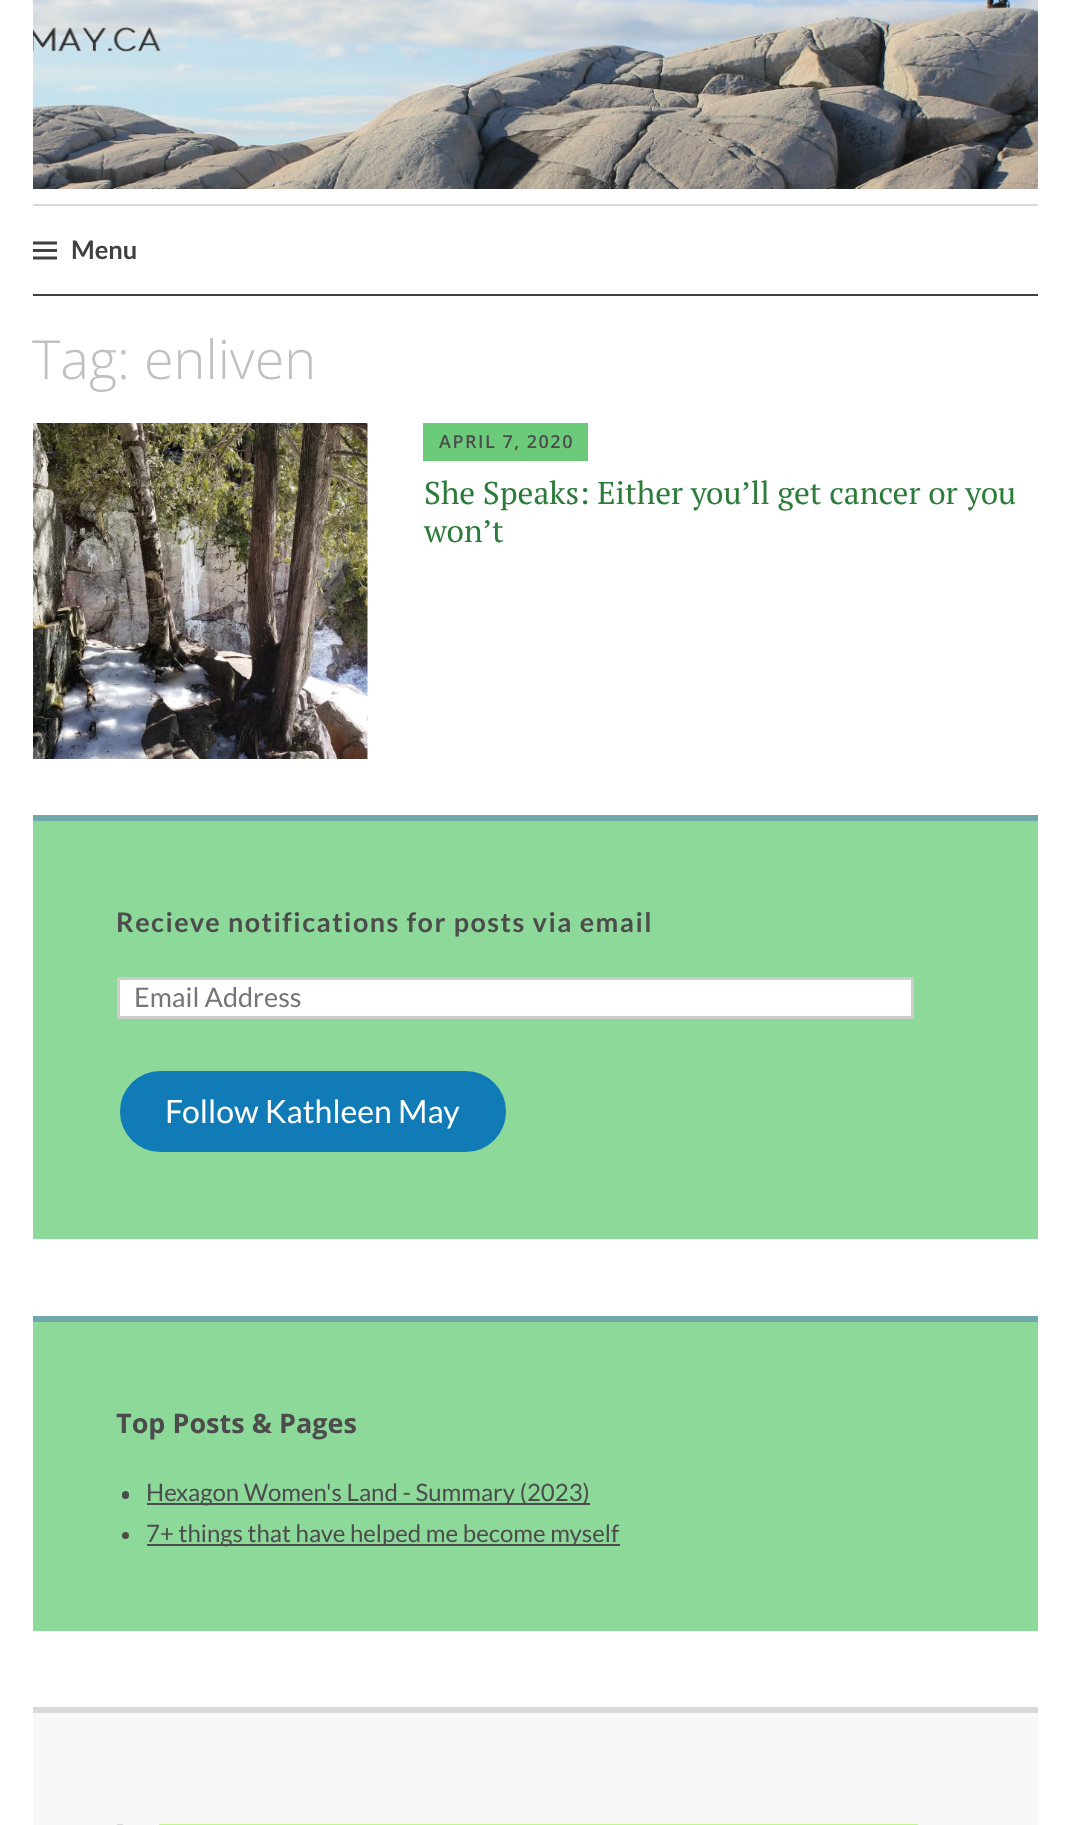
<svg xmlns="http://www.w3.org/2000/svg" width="1071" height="1825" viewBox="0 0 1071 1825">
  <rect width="100%" height="100%" fill="rgb(255,255,255)"/>
  <image x="33" y="0" width="1005" height="189" href="pic1.png"/>
  <rect x="33" y="204" width="1005" height="2" fill="rgb(217,217,217)"/>
  <rect x="33" y="294" width="1005" height="2" fill="rgb(64,64,64)"/>
  <image x="33" y="241" width="24" height="19" href="pic2.png"/>
  <text x="71" y="259" font-family="Lato" font-size="25.5" font-weight="bold" fill="rgb(64,64,64)">Menu</text>
  <text x="32" y="379" font-family="Open Sans" font-size="54" font-weight="300" fill="rgb(192,192,192)">Tag: enliven</text>
  <image x="33" y="423" width="335" height="336" href="pic3.png"/>
  <rect x="423" y="423" width="165" height="38" fill="rgb(107,203,123)"/>
  <text x="439" y="448" font-family="Open Sans" font-size="18" font-weight="600" letter-spacing="1.5" fill="rgb(76,76,76)">APRIL 7, 2020</text>
  <g font-family="PT Serif" font-size="31.5" fill="rgb(43,124,57)">
    <text>
      <tspan x="424" y="504">She Speaks: Either you’ll get cancer or you</tspan>
      <tspan x="424" y="542">won’t</tspan>
    </text>
  </g>
  <rect x="33" y="821" width="1005" height="418" fill="rgb(141,217,154)"/>
  <rect x="33" y="815" width="1005" height="6" fill="rgb(111,169,171)"/>
  <text x="116" y="932" font-family="Lato" font-size="27" font-weight="bold" letter-spacing="1.5" fill="rgb(76,76,76)">Recieve notifications for posts via email</text>
  <rect x="118.5" y="978.5" width="794" height="39" fill="rgb(255,255,255)" stroke="rgb(204,204,204)" stroke-width="3"/>
  <text x="134" y="1007" font-family="Lato" font-size="27" fill="rgb(117,117,117)">Email Address</text>
  <rect x="118.5" y="1069.5" width="389" height="84" rx="42" fill="rgb(17,123,184)" stroke="rgb(141,217,154)" stroke-width="3"/>
  <text x="165" y="1123" font-family="Lato" font-size="32" fill="rgb(255,255,255)">Follow Kathleen May</text>
  <rect x="33" y="1322" width="1005" height="309" fill="rgb(141,217,154)"/>
  <rect x="33" y="1316" width="1005" height="6" fill="rgb(111,169,171)"/>
  <text x="116" y="1433" font-family="Open Sans" font-size="27" font-weight="bold" fill="rgb(76,76,76)">Top Posts &amp; Pages</text>
  <rect x="122" y="1491" width="7" height="8" rx="3.5" fill="rgb(76,76,76)"/>
  <rect x="147" y="1503" width="443" height="2" fill="rgb(76,76,76)"/>
  <text x="146" y="1501" font-family="Lato" font-size="24" fill="rgb(76,76,76)">Hexagon Women's Land - Summary (2023)</text>
  <circle cx="125.5" cy="1535.5" r="3.5" fill="rgb(76,76,76)"/>
  <rect x="147" y="1544" width="473" height="2" fill="rgb(76,76,76)"/>
  <text x="146" y="1542" font-family="Lato" font-size="24" fill="rgb(76,76,76)">7+ things that have helped me become myself</text>
  <rect x="33" y="1713" width="1005" height="112" fill="rgb(248,248,248)"/>
  <rect x="33" y="1707" width="1005" height="6" fill="rgb(217,217,217)"/>
  <rect x="117" y="1824" width="6" height="1" fill="rgb(217,217,217)"/>
  <rect x="159" y="1824" width="759" height="1" fill="rgb(191,247,138)"/>
</svg>
